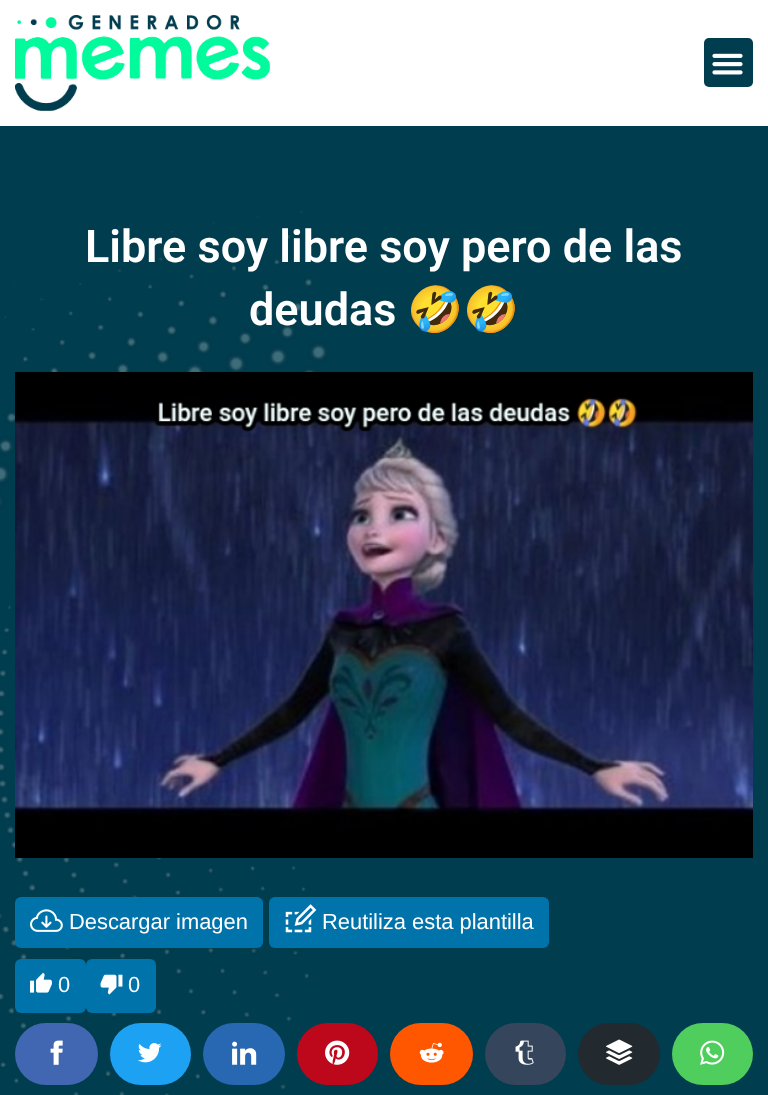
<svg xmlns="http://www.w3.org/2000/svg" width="768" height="1095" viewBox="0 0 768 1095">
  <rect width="100%" height="100%" fill="rgb(255,255,255)"/>
  <image x="15" y="15" width="255" height="96" href="pic1.png"/>
  <rect x="704" y="38" width="49" height="49" rx="5" fill="rgb(0,61,79)"/>
  <image x="712" y="53" width="31" height="22" href="pic2.png"/>
  <rect x="0" y="126" width="768" height="969" fill="rgb(0,61,79)"/>
  <image x="0" y="204" width="327" height="891" href="pic3.png"/>
  <g font-family="Roboto" font-size="45" font-weight="600" fill="rgb(255,255,255)">
    <text x="85" y="262">Libre soy libre soy pero de las</text>
    <text x="249" y="325">deudas</text>
  </g>
  <text x="407" y="325" font-family="Noto Color Emoji" font-size="45" font-weight="bold" fill="rgb(255,255,255)">🤣🤣</text>
  <image x="15" y="372" width="738" height="486" href="pic4.png"/>
  <rect x="15" y="897" width="248" height="51" rx="6" fill="rgb(0,115,170)"/>
  <image x="30" y="909" width="33" height="23" href="pic5.png"/>
  <text x="69" y="929" font-family="Liberation Sans" font-size="21.9" fill="rgb(255,255,255)">Descargar imagen</text>
  <rect x="269" y="897" width="280" height="51" rx="6" fill="rgb(0,115,170)"/>
  <image x="285" y="904" width="32" height="29" href="pic6.png"/>
  <text x="322" y="929" font-family="Liberation Sans" font-size="21.9" fill="rgb(255,255,255)">Reutiliza esta plantilla</text>
  <rect x="15" y="959" width="71" height="54" rx="6" fill="rgb(0,115,170)"/>
  <image x="30" y="972" width="22" height="21" href="pic7.png"/>
  <text x="58" y="992" font-family="Liberation Sans" font-size="21.9" fill="rgb(255,255,255)">0</text>
  <rect x="86" y="959" width="70" height="54" rx="6" fill="rgb(0,115,170)"/>
  <image x="100" y="974" width="23" height="21" href="pic8.png"/>
  <text x="128" y="992" font-family="Liberation Sans" font-size="21.9" fill="rgb(255,255,255)">0</text>
  <rect x="15" y="1023" width="83" height="62" rx="31" fill="rgb(66,103,178)"/>
  <image x="50" y="1040" width="13" height="25" href="pic9.png"/>
  <rect x="110" y="1023" width="81" height="62" rx="31" fill="rgb(29,161,242)"/>
  <image x="138" y="1043" width="24" height="20" href="pic10.png"/>
  <rect x="203" y="1023" width="82" height="62" rx="31" fill="rgb(40,103,178)"/>
  <image x="232" y="1041" width="25" height="24" href="pic11.png"/>
  <rect x="297" y="1023" width="81" height="62" rx="31" fill="rgb(189,8,28)"/>
  <image x="325" y="1040" width="25" height="25" href="pic12.png"/>
  <rect x="390" y="1023" width="83" height="62" rx="31" fill="rgb(255,87,0)"/>
  <image x="419" y="1042" width="25" height="21" href="pic13.png"/>
  <rect x="485" y="1023" width="81" height="62" rx="31" fill="rgb(53,70,92)"/>
  <image x="515" y="1040" width="19" height="25" href="pic14.png"/>
  <rect x="578" y="1023" width="82" height="62" rx="31" fill="rgb(34,42,48)"/>
  <image x="606" y="1039" width="27" height="26" href="pic15.png"/>
  <rect x="672" y="1023" width="81" height="62" rx="31" fill="rgb(79,206,93)"/>
  <image x="700" y="1040" width="25" height="25" href="pic16.png"/>
</svg>
